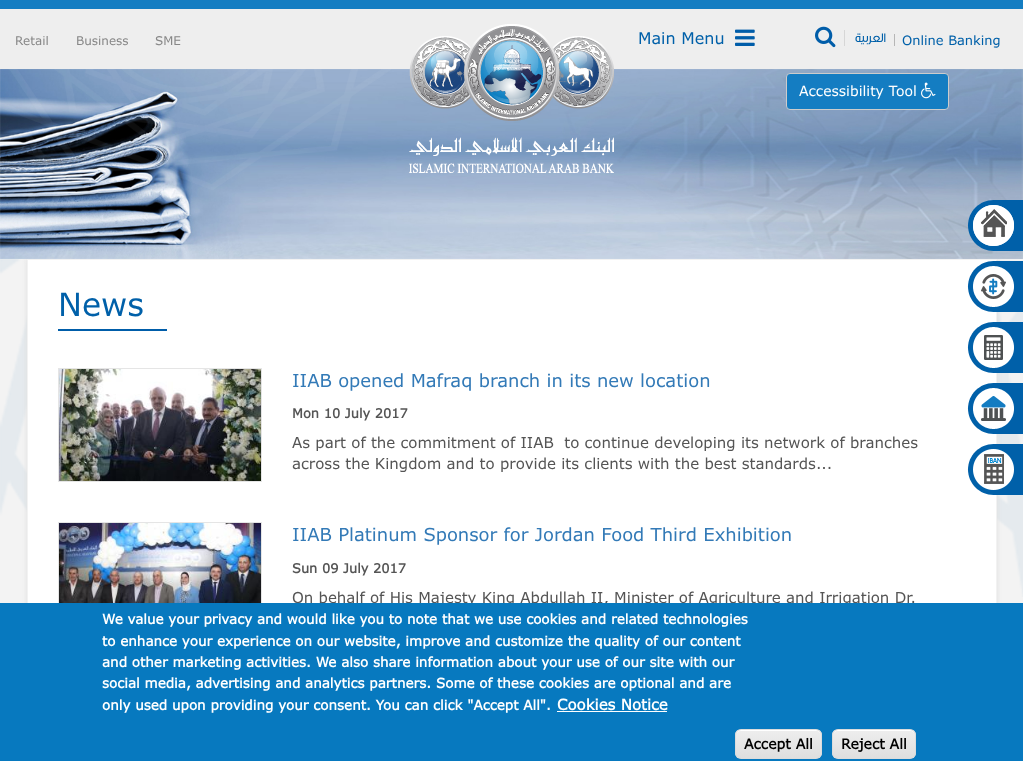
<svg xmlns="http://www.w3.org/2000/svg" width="1023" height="761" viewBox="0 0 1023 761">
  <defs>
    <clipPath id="clip1"><rect x="735" y="729" width="87" height="30" rx="6"/></clipPath>
    <linearGradient id="g1" gradientUnits="userSpaceOnUse" x1="779" y1="730" x2="779" y2="758"><stop offset="0.05" stop-color="rgb(237,237,237)"/><stop offset="1" stop-color="rgb(223,223,223)"/></linearGradient>
    <clipPath id="clip2"><rect x="832" y="729" width="84" height="30" rx="6"/></clipPath>
    <linearGradient id="g2" gradientUnits="userSpaceOnUse" x1="874" y1="730" x2="874" y2="758"><stop offset="0.05" stop-color="rgb(237,237,237)"/><stop offset="1" stop-color="rgb(223,223,223)"/></linearGradient>
  </defs>
  <rect width="100%" height="100%" fill="rgb(238,238,238)"/>
  <rect x="0" y="259" width="1023" height="344" fill="rgb(243,243,243)"/>
  <image x="0" y="259" width="1023" height="338" href="pic7.png"/>
  <rect x="27" y="259" width="970" height="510" fill="rgb(221,221,221)" filter="blur(2.5px)"/>
  <image x="0" y="69" width="1023" height="190" href="pic5.png"/>
  <image x="409" y="24" width="205" height="149" href="pic1.png"/>
  <g font-family="Verdana" font-size="12" fill="rgb(135,135,135)">
    <text x="15" y="45">Retail</text>
    <text x="76" y="45">Business</text>
    <text x="155" y="45">SME</text>
  </g>
  <text x="638" y="44" font-family="Verdana" font-size="16" fill="rgb(0,96,169)">Main Menu</text>
  <image x="735" y="29" width="20" height="17" href="pic2.png"/>
  <rect x="844" y="30" width="1" height="16" fill="rgb(214,214,214)"/>
  <image x="815" y="26" width="21" height="22" href="pic3.png"/>
  <text x="886" y="42" font-family="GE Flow" font-size="13" direction="rtl" fill="rgb(0,96,169)">العربية</text>
  <rect x="894" y="34" width="1" height="12" fill="rgb(182,182,182)"/>
  <text x="902" y="45" font-family="Verdana" font-size="13" fill="rgb(0,96,169)">Online Banking</text>
  <rect x="0" y="0" width="1023" height="9" fill="rgb(20,125,194)"/>
  <rect x="786.5" y="73.5" width="162" height="36" rx="3.5" fill="rgb(20,125,194)" stroke="rgb(204,204,204)"/>
  <text x="799" y="96" font-family="Verdana" font-size="14" fill="rgb(255,255,255)">Accessibility Tool</text>
  <image x="921" y="82" width="15" height="17" href="pic4.png"/>
  <image x="0" y="69" width="391" height="182" href="pic6.png"/>
  <rect x="28" y="260" width="968" height="343" fill="rgb(255,255,255)"/>
  <rect x="27.5" y="259.5" width="969" height="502" fill="none" stroke="rgb(242,242,242)"/>
  <rect x="58" y="329" width="109" height="2" fill="rgb(0,93,169)"/>
  <text x="58" y="316" font-family="Verdana" font-size="32" fill="rgb(0,96,169)">News</text>
  <rect x="58.5" y="368.5" width="203" height="113" fill="none" stroke="rgb(229,229,229)"/>
  <image x="59" y="369" width="202" height="112" href="pic8.png"/>
  <text x="292" y="387" font-family="Verdana" font-size="18" fill="rgb(51,122,183)">IIAB opened Mafraq branch in its new location</text>
  <text x="292" y="418" font-family="Verdana" font-size="13" font-weight="bold" fill="rgb(85,85,85)">Mon 10 July 2017</text>
  <g font-family="Verdana" font-size="15" fill="rgb(85,85,85)">
    <text xml:space="preserve"><tspan x="292" y="448">As part of the commitment of IIAB  to continue developing its network of branches</tspan><tspan x="292" y="469">across the Kingdom and to provide its clients with the best standards...</tspan></text>
  </g>
  <rect x="58.5" y="522.5" width="203" height="114" fill="none" stroke="rgb(229,229,229)"/>
  <image x="59" y="523" width="202" height="80" href="pic9.png"/>
  <text x="292" y="541" font-family="Verdana" font-size="18" fill="rgb(51,122,183)">IIAB Platinum Sponsor for Jordan Food Third Exhibition</text>
  <text x="292" y="573" font-family="Verdana" font-size="13" font-weight="bold" fill="rgb(85,85,85)">Sun 09 July 2017</text>
  <text x="292" y="603" font-family="Verdana" font-size="15" fill="rgb(85,85,85)">On behalf of His Majesty King Abdullah II, Minister of Agriculture and Irrigation Dr.</text>
  <path d="M993.5 200H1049V251H993.5C979.5 251 968 239.5 968 225.5C968 211.5 979.5 200 993.5 200Z" fill="rgb(0,96,169)"/>
  <image x="973" y="205" width="41" height="41" href="pic10.png"/>
  <path d="M993.5 261H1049V312H993.5C979.5 312 968 300.5 968 286.5C968 272.5 979.5 261 993.5 261Z" fill="rgb(0,96,169)"/>
  <image x="973" y="266" width="41" height="41" href="pic11.png"/>
  <path d="M993.5 322H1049V373H993.5C979.5 373 968 361.5 968 347.5C968 333.5 979.5 322 993.5 322Z" fill="rgb(0,96,169)"/>
  <image x="973" y="327" width="41" height="41" href="pic12.png"/>
  <path d="M993.5 383H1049V434H993.5C979.5 434 968 422.5 968 408.5C968 394.5 979.5 383 993.5 383Z" fill="rgb(0,96,169)"/>
  <image x="973" y="388" width="41" height="41" href="pic13.png"/>
  <path d="M993.5 444H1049V495H993.5C979.5 495 968 483.5 968 469.5C968 455.5 979.5 444 993.5 444Z" fill="rgb(0,96,169)"/>
  <image x="973" y="449" width="41" height="41" href="pic14.png"/>
  <rect x="0" y="603" width="1023" height="158" fill="rgb(7,121,191)"/>
  <g font-family="Verdana" font-size="13.5" font-weight="bold" fill="rgb(255,255,255)">
    <text>
      <tspan x="102" y="624">We value your privacy and would like you to note that we use cookies and related technologies</tspan>
      <tspan x="102" y="646">to enhance your experience on our website, improve and customize the quality of our content</tspan>
      <tspan x="102" y="667">and other marketing activities. We also share information about your use of our site with our</tspan>
      <tspan x="102" y="688">social media, advertising and analytics partners. Some of these cookies are optional and are</tspan>
      <tspan x="102" y="710">only used upon providing your consent. You can click "Accept All".</tspan>
    </text>
  </g>
  <text x="557" y="710" font-family="Verdana" font-size="15" font-weight="bold" fill="rgb(255,255,255)">Cookies Notice</text>
  <rect x="557" y="711" width="110" height="1" fill="rgb(255,255,255)"/>
  <g clip-path="url(#clip1)">
    <rect x="735" y="730" width="87" height="28" fill="url(#g1)"/>
  </g>
  <path d="M741 731H816C819 731 821 733 821 736C821 727 809 730 804 730H754C748 730 736 727 736 736C736 733 738 731 741 731Z" fill="rgb(255,255,255)"/>
  <rect x="735.5" y="729.5" width="86" height="29" rx="5.5" fill="none" stroke="rgb(220,220,220)"/>
  <text x="744" y="749" font-family="Verdana" font-size="14" font-weight="bold" fill="rgb(0,0,0)">Accept All</text>
  <g clip-path="url(#clip2)">
    <rect x="832" y="730" width="84" height="28" fill="url(#g2)"/>
  </g>
  <path d="M838 731H910C913 731 915 733 915 736C915 727 904 730 898 730H850C844 730 833 727 833 736C833 733 835 731 838 731Z" fill="rgb(255,255,255)"/>
  <rect x="832.5" y="729.5" width="83" height="29" rx="5.5" fill="none" stroke="rgb(220,220,220)"/>
  <text x="841" y="749" font-family="Verdana" font-size="14" font-weight="bold" fill="rgb(0,0,0)">Reject All</text>
</svg>
